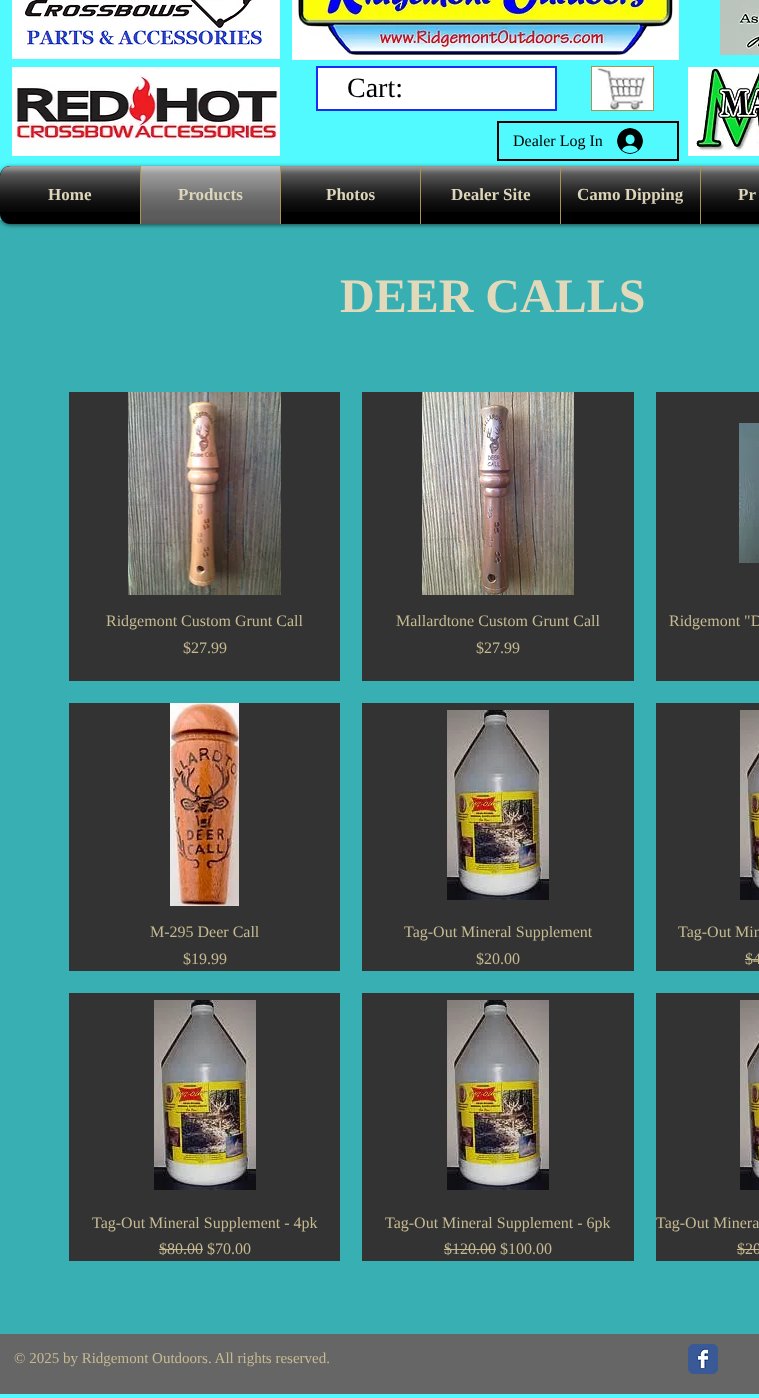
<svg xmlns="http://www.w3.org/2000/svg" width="759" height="1398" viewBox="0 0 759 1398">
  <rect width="100%" height="100%" fill="rgb(80,250,254)"/>
  <image x="12" y="0" width="268" height="59" href="pic1.png"/>
  <image x="292" y="0" width="387" height="60" href="pic2.png"/>
  <image x="720" y="0" width="39" height="55" href="pic3.png"/>
  <image x="12" y="67" width="268" height="89" href="pic4.png"/>
  <rect x="317" y="67" width="239" height="43" fill="rgb(255,255,255)" stroke="rgb(29,44,243)" stroke-width="2"/>
  <text x="347" y="97" font-family="Liberation Serif" font-size="28" fill="rgb(0,0,0)">Cart:</text>
  <rect x="591" y="66" width="63" height="45" fill="rgb(170,149,80)"/>
  <image x="592" y="67" width="61" height="43" href="pic5.png"/>
  <image x="688" y="67" width="71" height="89" href="pic6.png"/>
  <rect x="498" y="122" width="180" height="38" fill="none" stroke="rgb(0,0,0)" stroke-width="2"/>
  <text x="513" y="146" font-family="Liberation Serif" font-size="16" fill="rgb(0,0,0)">Dealer Log In</text>
  <image x="617" y="128" width="26" height="26" href="pic7.png"/>
  <rect x="0" y="220" width="759" height="1114" fill="rgb(56,176,179)"/>
  <rect x="0" y="167" width="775" height="58" rx="10" fill="rgba(0,0,0,0.6)" filter="blur(2px)"/>
  <image x="0" y="166" width="10" height="10" href="pic8.png"/>
  <path d="M10 166H140V224H10C4.5 224 0 219.5 0 214V176C0 170.5 4.5 166 10 166Z" fill="rgb(0,0,0)"/>
  <text x="48" y="200" font-family="Liberation Serif" font-size="17" font-weight="bold" fill="rgb(226,217,186)">Home</text>
  <image x="0" y="166" width="140" height="46" href="pic9.png"/>
  <image x="49" y="190" width="42" height="10" href="pic10.png"/>
  <rect x="141" y="166" width="139" height="58" fill="rgb(102,102,102)"/>
  <rect x="140" y="166" width="1" height="58" fill="rgb(170,149,80)"/>
  <text x="178" y="200" font-family="Liberation Serif" font-size="17" font-weight="bold" fill="rgb(226,217,186)">Products</text>
  <image x="141" y="166" width="139" height="45" href="pic11.png"/>
  <image x="141" y="190" width="139" height="34" href="pic12.png"/>
  <rect x="281" y="166" width="139" height="58" fill="rgb(0,0,0)"/>
  <rect x="280" y="166" width="1" height="58" fill="rgb(170,149,80)"/>
  <text x="326" y="200" font-family="Liberation Serif" font-size="17" font-weight="bold" fill="rgb(226,217,186)">Photos</text>
  <image x="281" y="166" width="139" height="46" href="pic13.png"/>
  <image x="326" y="190" width="49" height="10" href="pic14.png"/>
  <rect x="421" y="166" width="139" height="58" fill="rgb(0,0,0)"/>
  <rect x="420" y="166" width="1" height="58" fill="rgb(170,149,80)"/>
  <text x="451" y="200" font-family="Liberation Serif" font-size="17" font-weight="bold" fill="rgb(226,217,186)">Dealer Site</text>
  <image x="421" y="166" width="139" height="46" href="pic15.png"/>
  <image x="451" y="190" width="79" height="10" href="pic16.png"/>
  <rect x="561" y="166" width="139" height="58" fill="rgb(0,0,0)"/>
  <rect x="560" y="166" width="1" height="58" fill="rgb(170,149,80)"/>
  <text x="577" y="200" font-family="Liberation Serif" font-size="17" font-weight="bold" fill="rgb(226,217,186)">Camo Dipping</text>
  <image x="561" y="166" width="139" height="46" href="pic17.png"/>
  <image x="578" y="190" width="106" height="14" href="pic18.png"/>
  <rect x="701" y="166" width="58" height="58" fill="rgb(0,0,0)"/>
  <rect x="700" y="166" width="1" height="58" fill="rgb(170,149,80)"/>
  <text x="738" y="200" font-family="Liberation Serif" font-size="17" font-weight="bold" fill="rgb(226,217,186)">Pr</text>
  <image x="701" y="166" width="58" height="46" href="pic19.png"/>
  <image x="738" y="190" width="21" height="10" href="pic20.png"/>
  <text x="340" y="312" font-family="Liberation Serif" font-size="48" font-weight="bold" fill="rgb(226,217,186)">DEER CALLS</text>
  <rect x="69" y="392" width="271" height="289" fill="rgb(51,51,51)"/>
  <image x="128" y="392" width="153" height="203" href="pic21.png"/>
  <g font-family="Liberation Serif" font-size="16" fill="rgb(198,186,146)">
    <text x="106" y="626">Ridgemont Custom Grunt Call</text>
    <text x="183" y="653">$27.99</text>
  </g>
  <rect x="362" y="392" width="272" height="289" fill="rgb(51,51,51)"/>
  <image x="422" y="392" width="152" height="203" href="pic22.png"/>
  <g font-family="Liberation Serif" font-size="16" fill="rgb(198,186,146)">
    <text x="396" y="626">Mallardtone Custom Grunt Call</text>
    <text x="476" y="653">$27.99</text>
  </g>
  <rect x="656" y="392" width="103" height="289" fill="rgb(51,51,51)"/>
  <image x="739" y="423" width="20" height="140" href="pic23.png"/>
  <text x="669" y="626" font-family="Liberation Serif" font-size="16" fill="rgb(198,186,146)">Ridgemont "D</text>
  <rect x="69" y="703" width="271" height="268" fill="rgb(51,51,51)"/>
  <image x="170" y="703" width="69" height="203" href="pic24.png"/>
  <g font-family="Liberation Serif" font-size="16" fill="rgb(198,186,146)">
    <text x="150" y="937">M-295 Deer Call</text>
    <text x="183" y="964">$19.99</text>
  </g>
  <rect x="362" y="703" width="272" height="268" fill="rgb(51,51,51)"/>
  <image x="447" y="710" width="102" height="190" href="pic25.png"/>
  <g font-family="Liberation Serif" font-size="16" fill="rgb(198,186,146)">
    <text x="404" y="937">Tag-Out Mineral Supplement</text>
    <text x="476" y="964">$20.00</text>
  </g>
  <rect x="656" y="703" width="103" height="268" fill="rgb(51,51,51)"/>
  <image x="740" y="710" width="19" height="190" href="pic26.png"/>
  <g font-family="Liberation Serif" font-size="16" fill="rgb(198,186,146)">
    <text x="678" y="937">Tag-Out Min</text>
    <text x="745" y="964">$4</text>
  </g>
  <rect x="745" y="959" width="14" height="1" fill="rgb(198,186,146)"/>
  <rect x="69" y="993" width="271" height="268" fill="rgb(51,51,51)"/>
  <image x="154" y="1000" width="102" height="190" href="pic25.png"/>
  <g font-family="Liberation Serif" font-size="16" fill="rgb(198,186,146)">
    <text x="92" y="1228">Tag-Out Mineral Supplement - 4pk</text>
    <text x="159" y="1254">$80.00 $70.00</text>
  </g>
  <rect x="159" y="1249" width="44" height="1" fill="rgb(198,186,146)"/>
  <rect x="362" y="993" width="272" height="268" fill="rgb(51,51,51)"/>
  <image x="447" y="1000" width="102" height="190" href="pic25.png"/>
  <g font-family="Liberation Serif" font-size="16" fill="rgb(198,186,146)">
    <text x="385" y="1228">Tag-Out Mineral Supplement - 6pk</text>
    <text x="444" y="1254">$120.00 $100.00</text>
  </g>
  <rect x="444" y="1249" width="52" height="1" fill="rgb(198,186,146)"/>
  <rect x="656" y="993" width="103" height="268" fill="rgb(51,51,51)"/>
  <image x="740" y="1000" width="19" height="190" href="pic26.png"/>
  <g font-family="Liberation Serif" font-size="16" fill="rgb(198,186,146)">
    <text x="656" y="1228">Tag-Out Minera</text>
    <text x="737" y="1254">$20</text>
  </g>
  <rect x="737" y="1249" width="22" height="1" fill="rgb(198,186,146)"/>
  <rect x="0" y="1334" width="759" height="60" fill="rgb(102,102,102)"/>
  <text x="14" y="1363" font-family="Liberation Serif" font-size="15" fill="rgb(198,186,146)">© 2025 by Ridgemont Outdoors. All rights reserved.</text>
  <image x="688" y="1344" width="30" height="30" href="pic27.png"/>
</svg>
